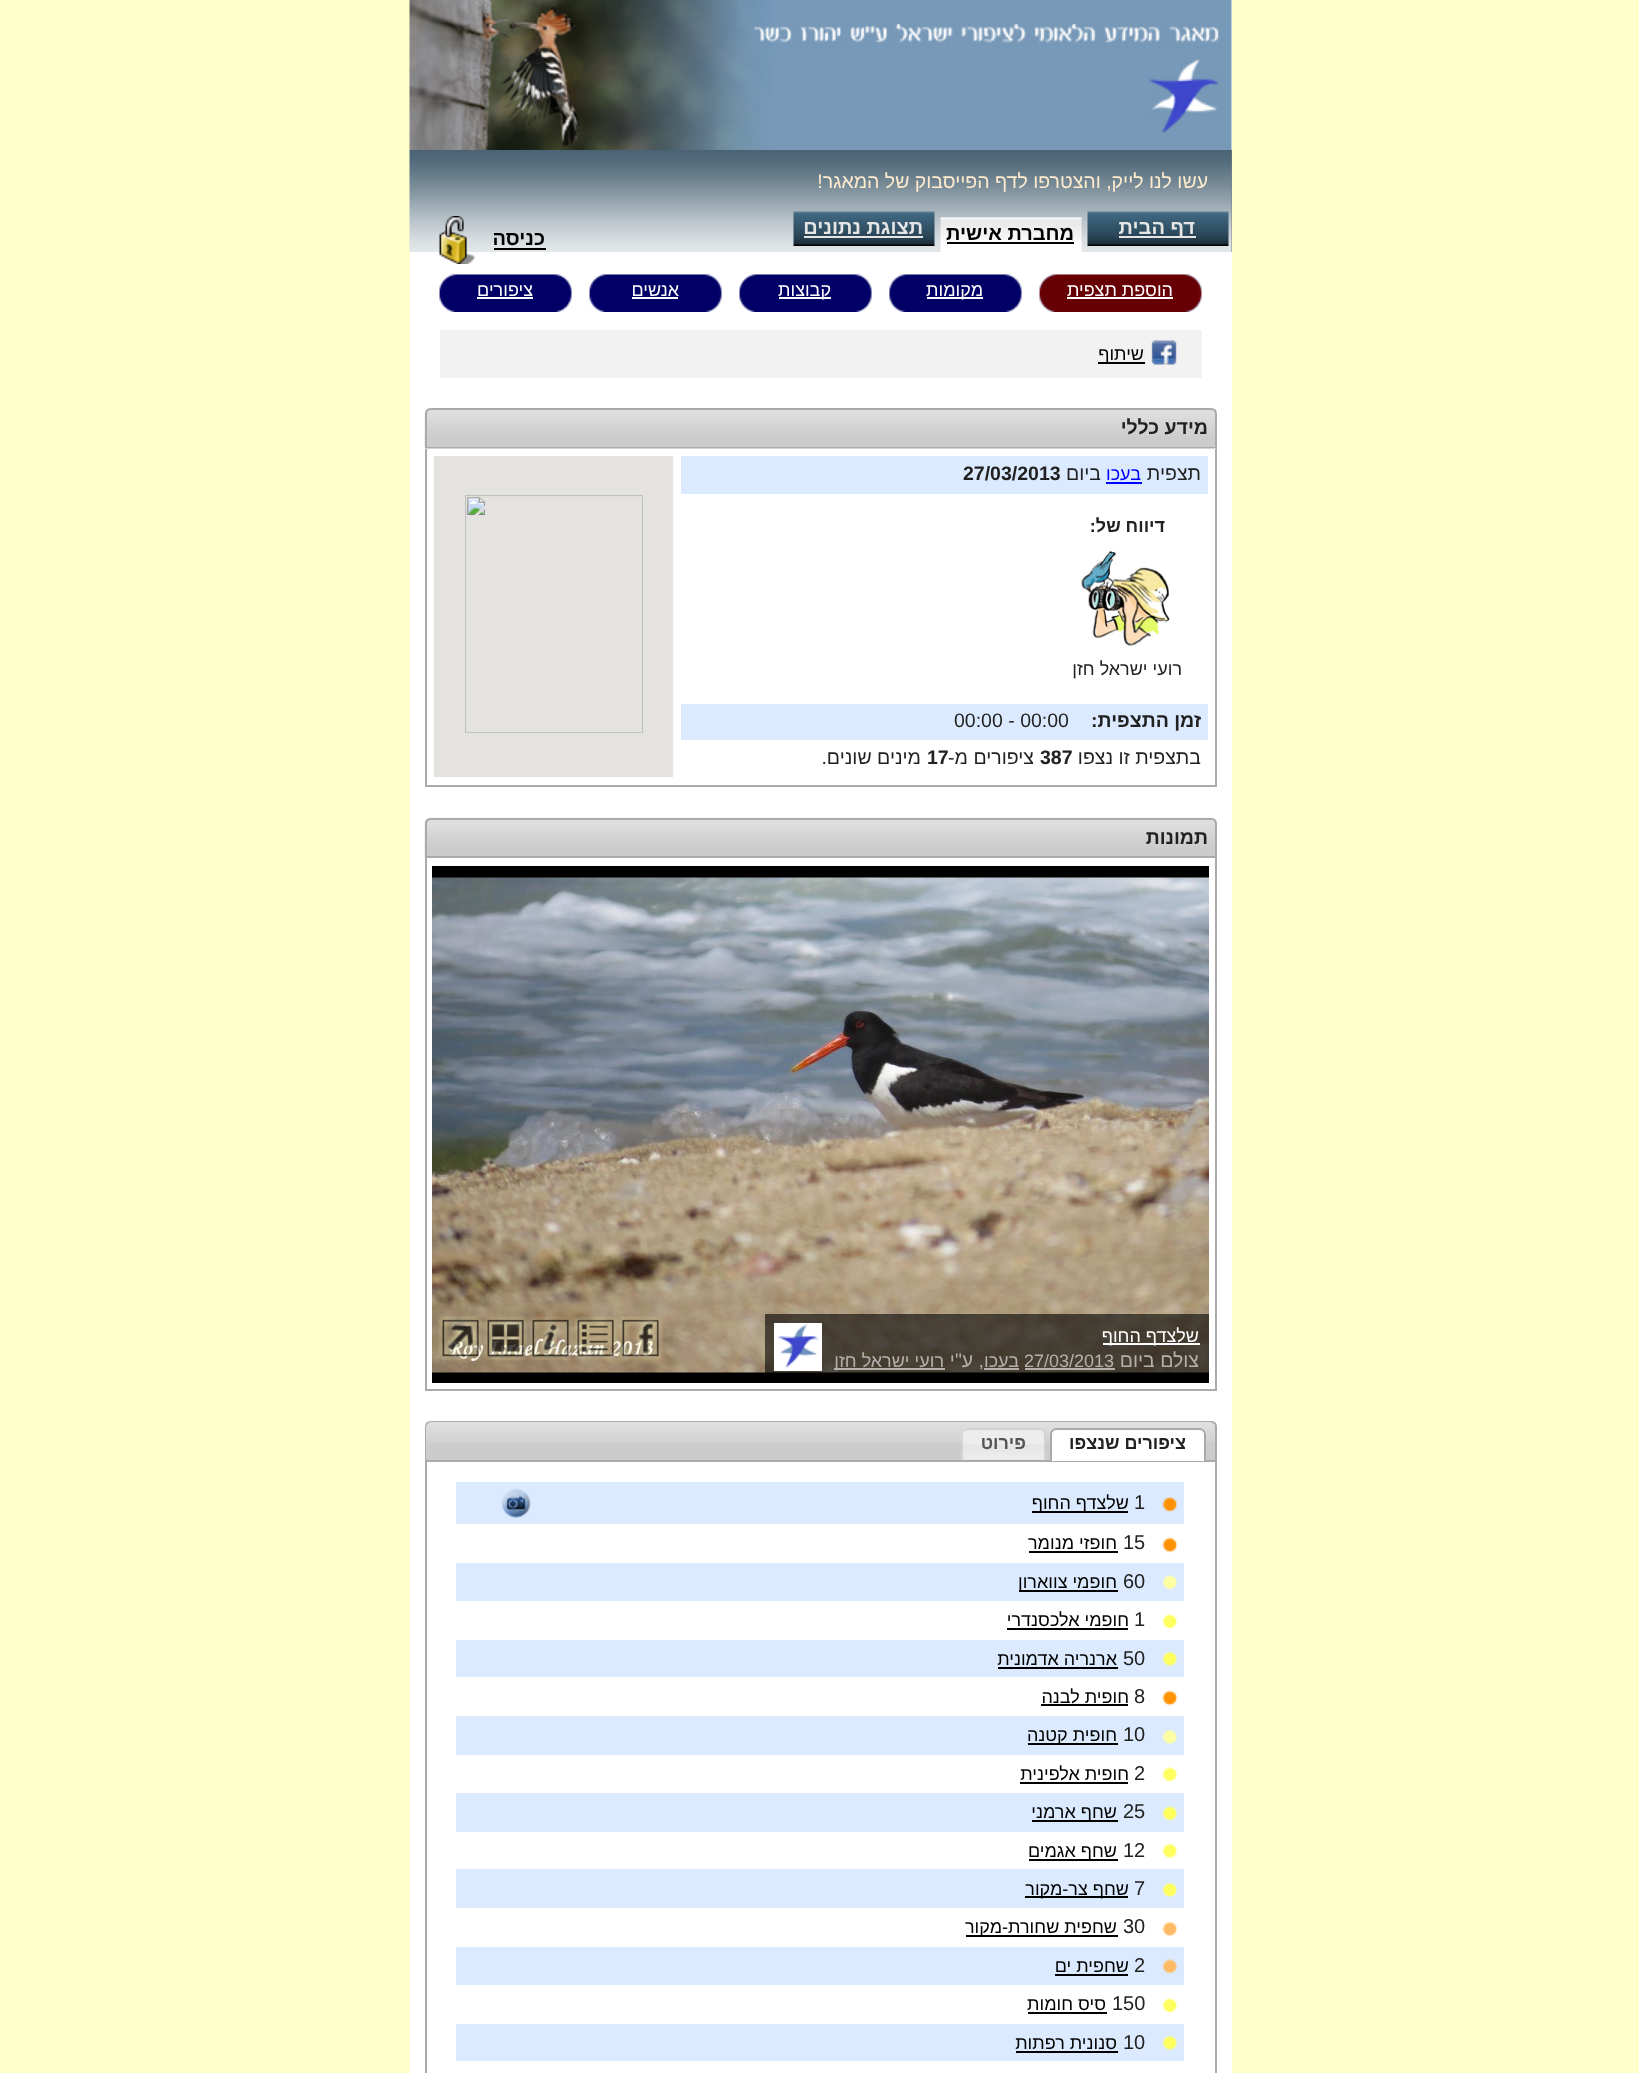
<svg xmlns="http://www.w3.org/2000/svg" width="1639" height="2073" viewBox="0 0 1639 2073">
  <rect width="100%" height="100%" fill="rgb(255,255,204)"/>
  <rect x="410" y="0" width="822" height="2073" fill="rgb(255,255,255)"/>
  <image x="409" y="0" width="823" height="150" href="pic1.png"/>
  <rect x="1231" y="150" width="1" height="102" fill="rgb(128,128,128)"/>
  <image x="409" y="150" width="823" height="102" href="pic2.png"/>
  <text x="1208" y="188" font-family="Liberation Sans" font-size="19.5" direction="rtl" fill="rgb(255,235,205)">עשו לנו לייק, והצטרפו לדף הפייסבוק של המאגר!</text>
  <image x="1087" y="211" width="142" height="35" href="pic3.png"/>
  <rect x="1119" y="236" width="77" height="2" fill="rgb(229,229,229)"/>
  <text x="1195" y="234" font-family="Liberation Sans" font-size="20" font-weight="bold" direction="rtl" fill="rgb(229,229,229)">דף הבית</text>
  <image x="940" y="217" width="142" height="35" href="pic4.png"/>
  <text x="1074" y="240" font-family="Liberation Sans" font-size="20" font-weight="bold" direction="rtl" fill="rgb(0,0,0)">מחברת אישית</text>
  <rect x="947" y="242" width="127" height="2" fill="rgb(0,0,0)"/>
  <image x="793" y="211" width="142" height="35" href="pic3.png"/>
  <text x="923" y="234" font-family="Liberation Sans" font-size="20" font-weight="bold" direction="rtl" fill="rgb(229,229,229)">תצוגת נתונים</text>
  <rect x="804" y="236" width="119" height="2" fill="rgb(229,229,229)"/>
  <text x="545" y="245" font-family="Liberation Sans" font-size="20" font-weight="bold" direction="rtl" fill="rgb(0,0,0)">כניסה</text>
  <rect x="494" y="248" width="52" height="2" fill="rgb(0,0,0)"/>
  <image x="439" y="216" width="36" height="48" href="pic5.png"/>
  <image x="1039" y="274" width="163" height="38" href="pic6.png"/>
  <text x="1173" y="296" font-family="Liberation Sans" font-size="18" direction="rtl" fill="rgb(255,255,255)">הוספת תצפית</text>
  <rect x="1067" y="297" width="106" height="2" fill="rgb(255,255,255)"/>
  <image x="889" y="274" width="133" height="38" href="pic7.png"/>
  <rect x="927" y="297" width="56" height="2" fill="rgb(255,255,255)"/>
  <text x="983" y="296" font-family="Liberation Sans" font-size="18" direction="rtl" fill="rgb(255,255,255)">מקומות</text>
  <image x="739" y="274" width="133" height="38" href="pic8.png"/>
  <rect x="779" y="297" width="52" height="2" fill="rgb(255,255,255)"/>
  <text x="831" y="296" font-family="Liberation Sans" font-size="18" direction="rtl" fill="rgb(255,255,255)">קבוצות</text>
  <image x="589" y="274" width="133" height="38" href="pic8.png"/>
  <text x="679" y="296" font-family="Liberation Sans" font-size="18" direction="rtl" fill="rgb(255,255,255)">אנשים</text>
  <rect x="632" y="297" width="46" height="2" fill="rgb(255,255,255)"/>
  <image x="439" y="274" width="133" height="38" href="pic8.png"/>
  <text x="533" y="296" font-family="Liberation Sans" font-size="18" direction="rtl" fill="rgb(255,255,255)">ציפורים</text>
  <rect x="477" y="297" width="56" height="2" fill="rgb(255,255,255)"/>
  <rect x="440" y="330" width="762" height="48" fill="rgb(242,242,242)"/>
  <image x="1151" y="340" width="26" height="25" href="pic9.png"/>
  <rect x="1098" y="362" width="47" height="2" fill="rgb(0,0,0)"/>
  <text x="1144" y="360" font-family="Liberation Sans" font-size="18" direction="rtl" fill="rgb(0,0,0)">שיתוף</text>
  <image x="424" y="408" width="793" height="40" href="pic10.png"/>
  <path d="M431 409H1211C1214 409 1216 411 1216 414V448H426V414C426 411 428 409 431 409Z" fill="none" stroke="rgb(170,170,170)" stroke-width="2"/>
  <text x="1208" y="434" font-family="Liberation Sans" font-size="19.5" font-weight="bold" direction="rtl" fill="rgb(33,33,33)">מידע כללי</text>
  <image x="425" y="448" width="792" height="1" href="pic11.png"/>
  <rect x="1215" y="449" width="2" height="337" fill="rgb(170,170,170)"/>
  <rect x="425" y="785" width="792" height="2" fill="rgb(170,170,170)"/>
  <rect x="425" y="449" width="2" height="337" fill="rgb(170,170,170)"/>
  <rect x="681" y="456" width="527" height="38" fill="rgb(219,234,255)"/>
  <text x="1201" y="480" font-family="Liberation Sans" font-size="19.5" direction="rtl" fill="rgb(33,33,33)">תצפית</text>
  <text x="1141" y="480" font-family="Liberation Sans" font-size="18" direction="rtl" fill="rgb(0,0,255)">בעכו</text>
  <rect x="1106" y="482" width="36" height="2" fill="rgb(0,0,255)"/>
  <text x="1101" y="480" font-family="Liberation Sans" font-size="19.5" direction="rtl" fill="rgb(33,33,33)">ביום</text>
  <text x="963" y="480" font-family="Liberation Sans" font-size="19.5" font-weight="bold" fill="rgb(33,33,33)">27/03/2013</text>
  <text x="1165" y="532" font-family="Liberation Sans" font-size="18" font-weight="bold" direction="rtl" fill="rgb(33,33,33)">דיווח של:</text>
  <image x="1081" y="551" width="89" height="95" href="pic12.png"/>
  <text x="1182" y="675" font-family="Liberation Sans" font-size="18" direction="rtl" fill="rgb(33,33,33)">רועי ישראל חזן</text>
  <rect x="681" y="704" width="527" height="36" fill="rgb(219,234,255)"/>
  <text x="1201" y="727" font-family="Liberation Sans" font-size="19.5" font-weight="bold" direction="rtl" fill="rgb(33,33,33)">זמן התצפית:</text>
  <text x="954" y="727" font-family="Liberation Sans" font-size="19.5" fill="rgb(33,33,33)">00:00 - 00:00</text>
  <text x="1201" y="764" font-family="Liberation Sans" font-size="19.5" direction="rtl" fill="rgb(33,33,33)">בתצפית זו נצפו</text>
  <text x="1040" y="764" font-family="Liberation Sans" font-size="19.5" font-weight="bold" fill="rgb(33,33,33)">387</text>
  <text x="1034" y="764" font-family="Liberation Sans" font-size="19.5" direction="rtl" fill="rgb(33,33,33)">ציפורים מ-</text>
  <text x="927" y="764" font-family="Liberation Sans" font-size="19.5" font-weight="bold" fill="rgb(33,33,33)">17</text>
  <text x="921" y="764" font-family="Liberation Sans" font-size="19.5" direction="rtl" fill="rgb(33,33,33)">מינים שונים.</text>
  <image x="433" y="456" width="241" height="321" href="pic13.png"/>
  <image x="424" y="817" width="793" height="41" href="pic14.png"/>
  <path d="M431 819H1211C1214 819 1216 821 1216 824V857H426V824C426 821 428 819 431 819Z" fill="none" stroke="rgb(170,170,170)" stroke-width="2"/>
  <text x="1208" y="844" font-family="Liberation Sans" font-size="19.5" font-weight="bold" direction="rtl" fill="rgb(33,33,33)">תמונות</text>
  <rect x="1215" y="858" width="2" height="533" fill="rgb(170,170,170)"/>
  <rect x="425" y="1389" width="792" height="2" fill="rgb(170,170,170)"/>
  <rect x="425" y="858" width="2" height="533" fill="rgb(170,170,170)"/>
  <rect x="432" y="866" width="777" height="517" fill="rgb(0,0,0)"/>
  <image x="432" y="877" width="777" height="496" href="pic15.png"/>
  <rect x="765" y="1314" width="444" height="59" fill="rgba(0,0,0,0.6)"/>
  <image x="774" y="1323" width="48" height="48" href="pic16.png"/>
  <rect x="1103" y="1343" width="97" height="2" fill="rgb(255,255,255)"/>
  <text x="1199" y="1342" font-family="Liberation Sans" font-size="18" direction="rtl" fill="rgb(255,255,255)">שלצדף החוף</text>
  <text x="1199" y="1367" font-family="Liberation Sans" font-size="19.5" direction="rtl" fill="rgb(180,177,173)">צולם ביום</text>
  <text x="1024" y="1367" font-family="Liberation Sans" font-size="18" fill="rgb(180,177,173)">27/03/2013</text>
  <rect x="1025" y="1368" width="90" height="2" fill="rgba(255,255,255,0.6)"/>
  <text x="1019" y="1367" font-family="Liberation Sans" font-size="18" direction="rtl" fill="rgb(180,177,173)">בעכו</text>
  <rect x="984" y="1368" width="35" height="2" fill="rgba(255,255,255,0.6)"/>
  <text x="984" y="1367" font-family="Liberation Sans" font-size="19.5" direction="rtl" fill="rgb(180,177,173)">, ע"י</text>
  <rect x="834" y="1368" width="111" height="2" fill="rgba(255,255,255,0.6)"/>
  <text x="944" y="1367" font-family="Liberation Sans" font-size="18" direction="rtl" fill="rgb(180,177,173)">רועי ישראל חזן</text>
  <image x="618" y="1315" width="45" height="46" href="pic17.png"/>
  <image x="573" y="1315" width="45" height="46" href="pic18.png"/>
  <image x="528" y="1315" width="45" height="46" href="pic19.png"/>
  <image x="483" y="1315" width="45" height="46" href="pic20.png"/>
  <image x="438" y="1315" width="45" height="46" href="pic21.png"/>
  <path d="M431 1422H1211C1214 1422 1216 1424 1216 1427V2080H426V1427C426 1424 428 1422 431 1422Z" fill="none" stroke="rgb(170,170,170)" stroke-width="2"/>
  <path d="M432 1422H1209C1212.5 1422 1215 1424.5 1215 1428V1461H426V1428C426 1424.5 428.5 1422 432 1422Z" fill="rgb(204,204,204)"/>
  <image x="426" y="1422" width="789" height="21" href="pic22.png"/>
  <rect x="426" y="1460" width="789" height="2" fill="rgb(170,170,170)"/>
  <path d="M1056 1428H1200C1203.5 1428 1206 1430.5 1206 1434V1461H1050V1434C1050 1430.5 1052.5 1428 1056 1428Z" fill="rgb(255,255,255)"/>
  <image x="1050" y="1428" width="156" height="5" href="pic23.png"/>
  <path d="M1056 1428H1200C1203 1428 1206 1431 1206 1434V1461H1050V1434C1050 1431 1053 1428 1056 1428ZM1056 1430H1200C1202 1430 1204 1432 1204 1434V1461H1052V1434C1052 1432 1054 1430 1056 1430Z" fill="rgb(170,170,170)" fill-rule="evenodd"/>
  <text x="1186" y="1449" font-family="Liberation Sans" font-size="18" font-weight="bold" direction="rtl" fill="rgb(33,33,33)">ציפורים שנצפו</text>
  <path d="M968 1428H1040C1043.5 1428 1046 1430.5 1046 1434V1460H962V1434C962 1430.5 964.5 1428 968 1428Z" fill="rgb(230,230,230)"/>
  <image x="961" y="1428" width="84" height="31" href="pic24.png"/>
  <path d="M968 1428H1040C1043 1428 1046 1431 1046 1434V1460H962V1434C962 1431 964 1428 968 1428ZM968 1430H1040C1042 1430 1044 1432 1044 1434V1460H963V1434C963 1432 965 1430 968 1430Z" fill="rgb(211,211,211)" fill-rule="evenodd"/>
  <text x="1026" y="1449" font-family="Liberation Sans" font-size="18" font-weight="bold" direction="rtl" fill="rgb(85,85,85)">פירוט</text>
  <rect x="456" y="1482" width="728" height="42" fill="rgb(219,234,255)"/>
  <image x="1162" y="1497" width="16" height="15" href="pic25.png"/>
  <text x="1134" y="1509" font-family="Liberation Sans" font-size="20" fill="rgb(33,33,33)">1</text>
  <rect x="1032" y="1511" width="96" height="2" fill="rgb(0,0,0)"/>
  <text x="1129" y="1509" font-family="Liberation Sans" font-size="18" direction="rtl" fill="rgb(0,0,0)">שלצדף החוף</text>
  <image x="501" y="1488" width="30" height="30" href="pic26.png"/>
  <image x="1162" y="1537" width="16" height="16" href="pic27.png"/>
  <text x="1123" y="1549" font-family="Liberation Sans" font-size="20" fill="rgb(33,33,33)">15</text>
  <text x="1117" y="1549" font-family="Liberation Sans" font-size="18" direction="rtl" fill="rgb(0,0,0)">חופזי מנומר</text>
  <rect x="1029" y="1551" width="89" height="2" fill="rgb(0,0,0)"/>
  <rect x="456" y="1563" width="728" height="38" fill="rgb(219,234,255)"/>
  <image x="1162" y="1575" width="16" height="15" href="pic28.png"/>
  <text x="1123" y="1588" font-family="Liberation Sans" font-size="20" fill="rgb(33,33,33)">60</text>
  <rect x="1019" y="1590" width="99" height="2" fill="rgb(0,0,0)"/>
  <text x="1117" y="1588" font-family="Liberation Sans" font-size="18" direction="rtl" fill="rgb(0,0,0)">חופמי צווארון</text>
  <image x="1162" y="1614" width="16" height="15" href="pic29.png"/>
  <text x="1134" y="1626" font-family="Liberation Sans" font-size="20" fill="rgb(33,33,33)">1</text>
  <text x="1129" y="1626" font-family="Liberation Sans" font-size="18" direction="rtl" fill="rgb(0,0,0)">חופמי אלכסנדרי</text>
  <rect x="1007" y="1628" width="121" height="2" fill="rgb(0,0,0)"/>
  <rect x="456" y="1640" width="728" height="37" fill="rgb(219,234,255)"/>
  <image x="1162" y="1651" width="16" height="16" href="pic30.png"/>
  <text x="1123" y="1665" font-family="Liberation Sans" font-size="20" fill="rgb(33,33,33)">50</text>
  <text x="1117" y="1665" font-family="Liberation Sans" font-size="18" direction="rtl" fill="rgb(0,0,0)">ארנריה אדמונית</text>
  <rect x="998" y="1667" width="120" height="2" fill="rgb(0,0,0)"/>
  <image x="1162" y="1690" width="16" height="16" href="pic27.png"/>
  <text x="1134" y="1703" font-family="Liberation Sans" font-size="20" fill="rgb(33,33,33)">8</text>
  <text x="1129" y="1703" font-family="Liberation Sans" font-size="18" direction="rtl" fill="rgb(0,0,0)">חופית לבנה</text>
  <rect x="1041" y="1704" width="87" height="2" fill="rgb(0,0,0)"/>
  <rect x="456" y="1716" width="728" height="39" fill="rgb(219,234,255)"/>
  <image x="1162" y="1729" width="16" height="16" href="pic31.png"/>
  <text x="1123" y="1741" font-family="Liberation Sans" font-size="20" fill="rgb(33,33,33)">10</text>
  <rect x="1028" y="1743" width="90" height="2" fill="rgb(0,0,0)"/>
  <text x="1117" y="1741" font-family="Liberation Sans" font-size="18" direction="rtl" fill="rgb(0,0,0)">חופית קטנה</text>
  <image x="1162" y="1767" width="16" height="15" href="pic29.png"/>
  <text x="1134" y="1780" font-family="Liberation Sans" font-size="20" fill="rgb(33,33,33)">2</text>
  <text x="1129" y="1780" font-family="Liberation Sans" font-size="18" direction="rtl" fill="rgb(0,0,0)">חופית אלפינית</text>
  <rect x="1020" y="1782" width="108" height="2" fill="rgb(0,0,0)"/>
  <rect x="456" y="1793" width="728" height="39" fill="rgb(219,234,255)"/>
  <image x="1162" y="1806" width="16" height="15" href="pic32.png"/>
  <text x="1123" y="1818" font-family="Liberation Sans" font-size="20" fill="rgb(33,33,33)">25</text>
  <rect x="1032" y="1820" width="86" height="2" fill="rgb(0,0,0)"/>
  <text x="1117" y="1818" font-family="Liberation Sans" font-size="18" direction="rtl" fill="rgb(0,0,0)">שחף ארמני</text>
  <image x="1162" y="1843" width="16" height="16" href="pic33.png"/>
  <text x="1123" y="1857" font-family="Liberation Sans" font-size="20" fill="rgb(33,33,33)">12</text>
  <rect x="1029" y="1859" width="89" height="2" fill="rgb(0,0,0)"/>
  <text x="1117" y="1857" font-family="Liberation Sans" font-size="18" direction="rtl" fill="rgb(0,0,0)">שחף אגמים</text>
  <rect x="456" y="1869" width="728" height="39" fill="rgb(219,234,255)"/>
  <image x="1162" y="1882" width="16" height="16" href="pic30.png"/>
  <text x="1134" y="1895" font-family="Liberation Sans" font-size="20" fill="rgb(33,33,33)">7</text>
  <rect x="1025" y="1896" width="103" height="2" fill="rgb(0,0,0)"/>
  <text x="1129" y="1895" font-family="Liberation Sans" font-size="18" direction="rtl" fill="rgb(0,0,0)">שחף צר-מקור</text>
  <image x="1162" y="1921" width="16" height="16" href="pic34.png"/>
  <text x="1123" y="1933" font-family="Liberation Sans" font-size="20" fill="rgb(33,33,33)">30</text>
  <rect x="966" y="1935" width="152" height="2" fill="rgb(0,0,0)"/>
  <text x="1117" y="1933" font-family="Liberation Sans" font-size="18" direction="rtl" fill="rgb(0,0,0)">שחפית שחורת-מקור</text>
  <rect x="456" y="1947" width="728" height="38" fill="rgb(219,234,255)"/>
  <image x="1162" y="1959" width="16" height="15" href="pic35.png"/>
  <text x="1134" y="1972" font-family="Liberation Sans" font-size="20" fill="rgb(33,33,33)">2</text>
  <text x="1129" y="1972" font-family="Liberation Sans" font-size="18" direction="rtl" fill="rgb(0,0,0)">שחפית ים</text>
  <rect x="1055" y="1974" width="73" height="2" fill="rgb(0,0,0)"/>
  <image x="1162" y="1998" width="16" height="15" href="pic29.png"/>
  <text x="1112" y="2010" font-family="Liberation Sans" font-size="20" fill="rgb(33,33,33)">150</text>
  <text x="1106" y="2010" font-family="Liberation Sans" font-size="18" direction="rtl" fill="rgb(0,0,0)">סיס חומות</text>
  <rect x="1028" y="2012" width="79" height="2" fill="rgb(0,0,0)"/>
  <rect x="456" y="2024" width="728" height="37" fill="rgb(219,234,255)"/>
  <image x="1162" y="2035" width="16" height="16" href="pic30.png"/>
  <text x="1123" y="2049" font-family="Liberation Sans" font-size="20" fill="rgb(33,33,33)">10</text>
  <text x="1117" y="2049" font-family="Liberation Sans" font-size="18" direction="rtl" fill="rgb(0,0,0)">סנונית רפתות</text>
  <rect x="1016" y="2051" width="102" height="2" fill="rgb(0,0,0)"/>
</svg>
